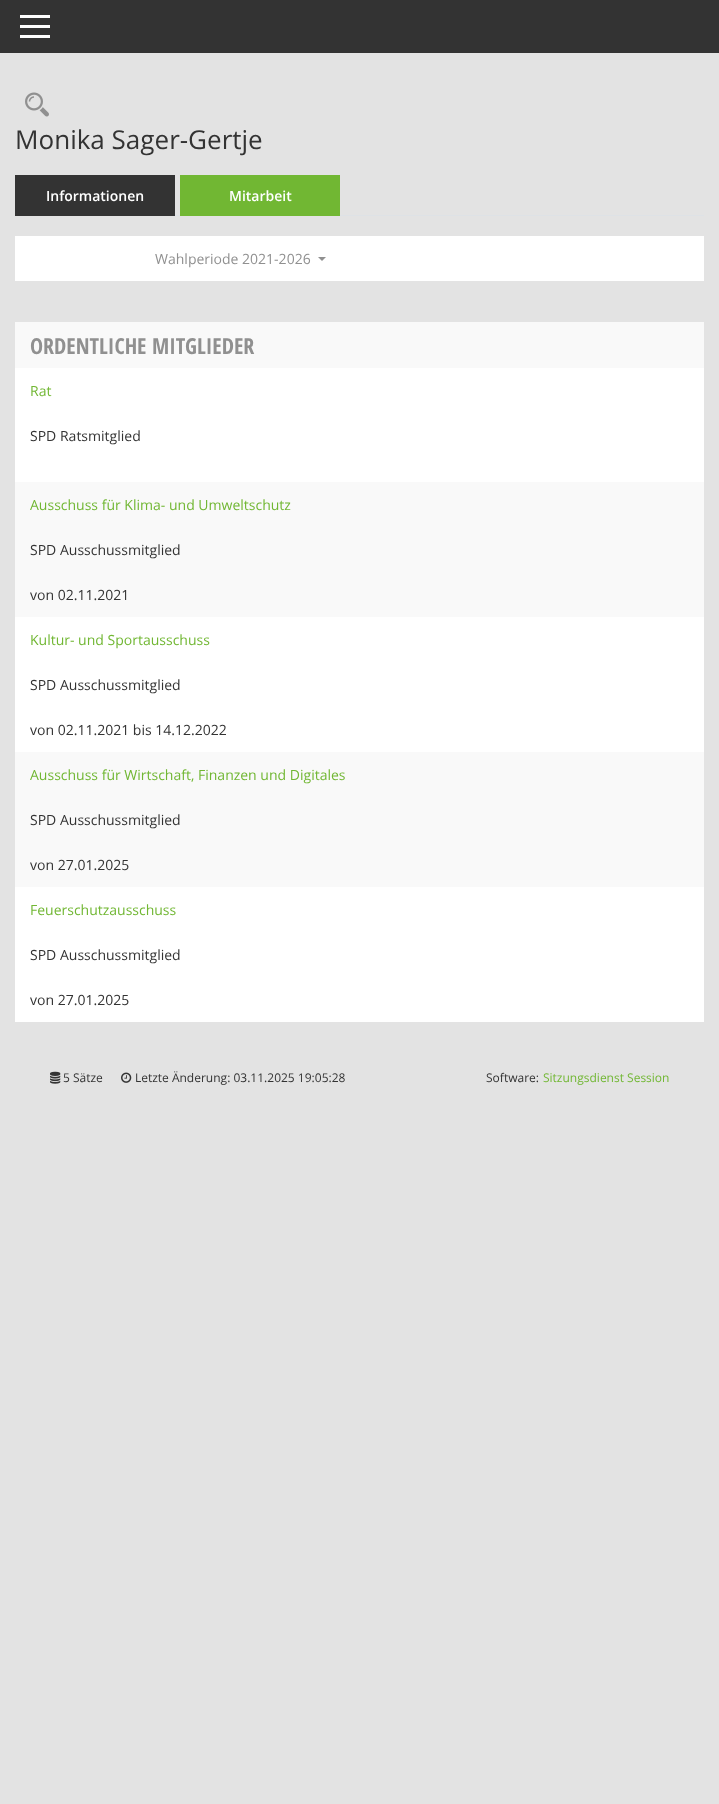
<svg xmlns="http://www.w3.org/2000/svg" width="719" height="1804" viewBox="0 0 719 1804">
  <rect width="100%" height="100%" fill="rgb(227,227,227)"/>
  <rect x="0" y="0" width="719" height="53" fill="rgb(51,51,51)"/>
  <rect x="20" y="15" width="30" height="3" fill="rgb(255,255,255)"/>
  <rect x="20" y="25" width="30" height="3" fill="rgb(255,255,255)"/>
  <rect x="20" y="35" width="30" height="3" fill="rgb(255,255,255)"/>
  <image x="25" y="92" width="24" height="25" href="pic1.png"/>
  <text x="15" y="149" font-family="Open Sans" font-size="26" fill="rgb(51,51,51)">Monika Sager-Gertje</text>
  <rect x="175" y="215" width="529" height="1" fill="rgb(222,226,230)"/>
  <rect x="15" y="175" width="160" height="41" fill="rgb(51,51,51)"/>
  <text x="46" y="201" font-family="Open Sans" font-size="14" font-weight="600" fill="rgb(255,255,255)">Informationen</text>
  <rect x="180" y="175" width="160" height="41" fill="rgb(113,183,51)"/>
  <text x="229" y="201" font-family="Open Sans" font-size="14" font-weight="600" fill="rgb(255,255,255)">Mitarbeit</text>
  <rect x="15" y="236" width="689" height="45" fill="rgb(255,255,255)"/>
  <text x="155" y="264" font-family="Open Sans" font-size="14" fill="rgb(144,144,144)">Wahlperiode 2021-2026</text>
  <path d="M318 257H326L322 261Z" fill="rgb(144,144,144)"/>
  <rect x="15" y="368" width="689" height="654" fill="rgb(255,255,255)"/>
  <rect x="15" y="322" width="689" height="46" fill="rgb(249,249,249)"/>
  <text x="30" y="354" font-family="Open Sans Condensed" font-size="22" font-weight="bold" fill="rgb(144,144,144)">ORDENTLICHE MITGLIEDER</text>
  <text x="30" y="396" font-family="Open Sans" font-size="14" fill="rgb(113,183,51)">Rat</text>
  <text x="30" y="441" font-family="Open Sans" font-size="14" fill="rgb(51,51,51)">SPD Ratsmitglied</text>
  <rect x="15" y="482" width="689" height="135" fill="rgb(249,249,249)"/>
  <text x="30" y="510" font-family="Open Sans" font-size="14" fill="rgb(113,183,51)">Ausschuss für Klima- und Umweltschutz</text>
  <g font-family="Open Sans" font-size="14" fill="rgb(51,51,51)">
    <text x="30" y="555">SPD Ausschussmitglied</text>
    <text x="30" y="600">von 02.11.2021</text>
  </g>
  <text x="30" y="645" font-family="Open Sans" font-size="14" fill="rgb(113,183,51)">Kultur- und Sportausschuss</text>
  <g font-family="Open Sans" font-size="14" fill="rgb(51,51,51)">
    <text x="30" y="690">SPD Ausschussmitglied</text>
    <text x="30" y="735">von 02.11.2021 bis 14.12.2022</text>
  </g>
  <rect x="15" y="752" width="689" height="135" fill="rgb(249,249,249)"/>
  <text x="30" y="780" font-family="Open Sans" font-size="14" fill="rgb(113,183,51)">Ausschuss für Wirtschaft, Finanzen und Digitales</text>
  <g font-family="Open Sans" font-size="14" fill="rgb(51,51,51)">
    <text x="30" y="825">SPD Ausschussmitglied</text>
    <text x="30" y="870">von 27.01.2025</text>
  </g>
  <text x="30" y="915" font-family="Open Sans" font-size="14" fill="rgb(113,183,51)">Feuerschutzausschuss</text>
  <g font-family="Open Sans" font-size="14" fill="rgb(51,51,51)">
    <text x="30" y="960">SPD Ausschussmitglied</text>
    <text x="30" y="1005">von 27.01.2025</text>
  </g>
  <image x="50" y="1071" width="11" height="13" href="pic2.png"/>
  <text x="63" y="1082" font-family="Open Sans" font-size="12" fill="rgb(51,51,51)">5 Sätze</text>
  <image x="121" y="1072" width="11" height="11" href="pic3.png"/>
  <g font-family="Open Sans" font-size="12" fill="rgb(51,51,51)">
    <text x="135" y="1082">Letzte Änderung: 03.11.2025 19:05:28</text>
    <text x="486" y="1082">Software:</text>
  </g>
  <text x="543" y="1082" font-family="Open Sans" font-size="12" fill="rgb(113,183,51)">Sitzungsdienst Session</text>
</svg>
